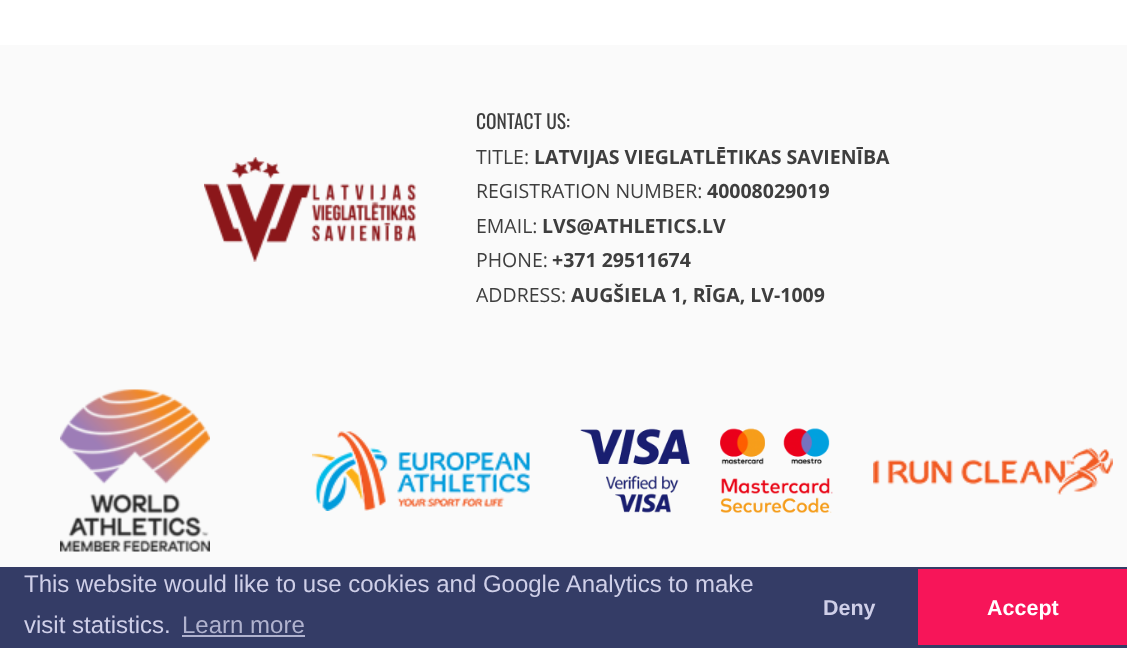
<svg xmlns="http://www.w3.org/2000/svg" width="1127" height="648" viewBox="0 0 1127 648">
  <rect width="100%" height="100%" fill="rgb(255,255,255)"/>
  <rect x="0" y="45" width="1127" height="522" fill="rgb(250,250,250)"/>
  <image x="204" y="157" width="212" height="105" href="pic1.png"/>
  <text x="476" y="129" font-family="Oswald" font-size="19.5" fill="rgb(62,62,62)">CONTACT US:</text>
  <text x="476" y="164" font-family="Open Sans" font-size="19.5" fill="rgb(62,62,62)">TITLE:</text>
  <text x="534" y="164" font-family="Open Sans" font-size="19.5" font-weight="bold" fill="rgb(62,62,62)">LATVIJAS VIEGLATLĒTIKAS SAVIENĪBA</text>
  <text x="476" y="198" font-family="Open Sans" font-size="19.5" fill="rgb(62,62,62)">REGISTRATION NUMBER:</text>
  <text x="707" y="198" font-family="Open Sans" font-size="19.5" font-weight="bold" fill="rgb(62,62,62)">40008029019</text>
  <text x="476" y="233" font-family="Open Sans" font-size="19.5" fill="rgb(62,62,62)">EMAIL:</text>
  <text x="542" y="233" font-family="Open Sans" font-size="19.5" font-weight="bold" fill="rgb(62,62,62)">LVS@ATHLETICS.LV</text>
  <text x="476" y="267" font-family="Open Sans" font-size="19.5" fill="rgb(62,62,62)">PHONE:</text>
  <text x="552" y="267" font-family="Open Sans" font-size="19.5" font-weight="bold" fill="rgb(62,62,62)">+371 29511674</text>
  <text x="476" y="302" font-family="Open Sans" font-size="19.5" fill="rgb(62,62,62)">ADDRESS:</text>
  <text x="571" y="302" font-family="Open Sans" font-size="19.5" font-weight="bold" fill="rgb(62,62,62)">AUGŠIELA 1, RĪGA, LV-1009</text>
  <image x="60" y="389" width="150" height="163" href="pic2.png"/>
  <image x="312" y="431" width="218" height="80" href="pic3.png"/>
  <image x="580" y="428" width="110" height="85" href="pic4.png"/>
  <image x="720" y="428" width="113" height="85" href="pic5.png"/>
  <image x="873" y="447" width="240" height="48" href="pic6.png"/>
  <rect x="0" y="567" width="1127" height="81" fill="rgb(52,60,102)"/>
  <g font-family="Liberation Sans" font-size="24" fill="rgb(207,207,232)">
    <text>
      <tspan x="24" y="592">This website would like to use cookies and Google Analytics to make</tspan>
      <tspan x="24" y="633">visit statistics.</tspan>
    </text>
  </g>
  <text x="182" y="633" font-family="Liberation Sans" font-size="24" fill="rgb(176,178,206)">Learn more</text>
  <rect x="182" y="635" width="123" height="2" fill="rgb(176,178,206)"/>
  <text x="823" y="615" font-family="Liberation Sans" font-size="21.5" font-weight="bold" fill="rgb(207,207,232)">Deny</text>
  <rect x="918" y="569" width="209" height="76" fill="rgb(247,21,89)"/>
  <text x="987" y="615" font-family="Liberation Sans" font-size="21.5" font-weight="bold" fill="rgb(255,255,255)">Accept</text>
</svg>
